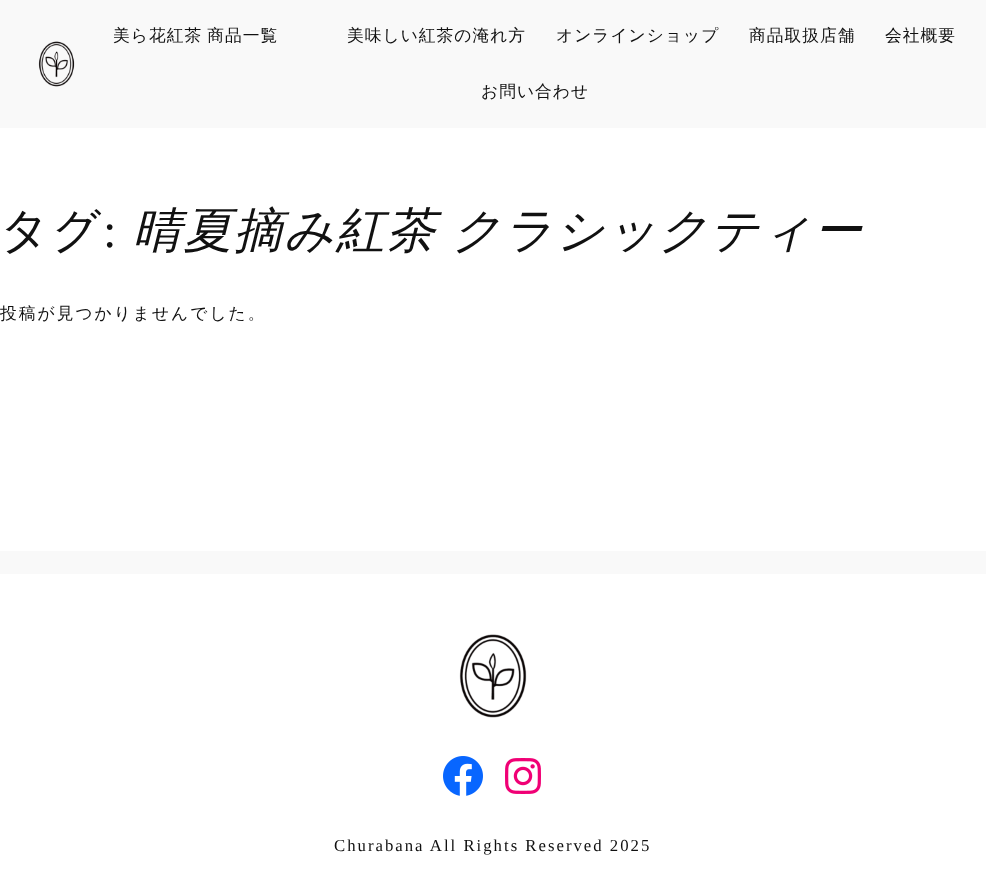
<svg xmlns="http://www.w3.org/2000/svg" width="986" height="876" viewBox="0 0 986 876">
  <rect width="100%" height="100%" fill="rgb(249,249,249)"/>
  <image x="38" y="41" width="37" height="46" href="pic1.png"/>
  <g font-family="WenQuanYi Zen Hei" font-size="16.75" font-weight="500" letter-spacing="1" fill="rgb(17,17,17)">
    <text x="113" y="41" word-spacing="-1">美ら花紅茶 商品一覧</text>
    <text x="347" y="41">美味しい紅茶の淹れ方</text>
    <text x="556" y="41">オンラインショップ</text>
    <text x="749" y="41">商品取扱店舗</text>
    <text x="885" y="41">会社概要</text>
    <text x="481" y="97">お問い合わせ</text>
  </g>
  <rect x="0" y="128" width="986" height="423" fill="rgb(255,255,255)"/>
  <text x="0" y="247" font-family="WenQuanYi Zen Hei" font-size="48.5" font-weight="500" letter-spacing="2" fill="rgb(17,17,17)">タグ</text>
  <text x="103" y="247" font-family="Liberation Serif" font-size="48.5" letter-spacing="2" fill="rgb(17,17,17)">:</text>
  <text x="133" y="247" word-spacing="-2" font-family="WenQuanYi Zen Hei" font-size="48.5" font-weight="500" font-style="italic" letter-spacing="2" fill="rgb(17,17,17)">晴夏摘み紅茶 クラシックティー</text>
  <text x="0" y="319" font-family="WenQuanYi Zen Hei" font-size="16.75" font-weight="500" letter-spacing="2" fill="rgb(17,17,17)">投稿が見つかりませんでした。</text>
  <rect x="0" y="574" width="986" height="302" fill="rgb(255,255,255)"/>
  <image x="459" y="634" width="68" height="84" href="pic2.png"/>
  <image x="443" y="756" width="40" height="40" href="pic3.png"/>
  <image x="505" y="758" width="36" height="36" href="pic4.png"/>
  <text x="334" y="851" font-family="Liberation Serif" font-size="16.75" letter-spacing="2" fill="rgb(17,17,17)">Churabana All Rights Reserved 2025</text>
</svg>
